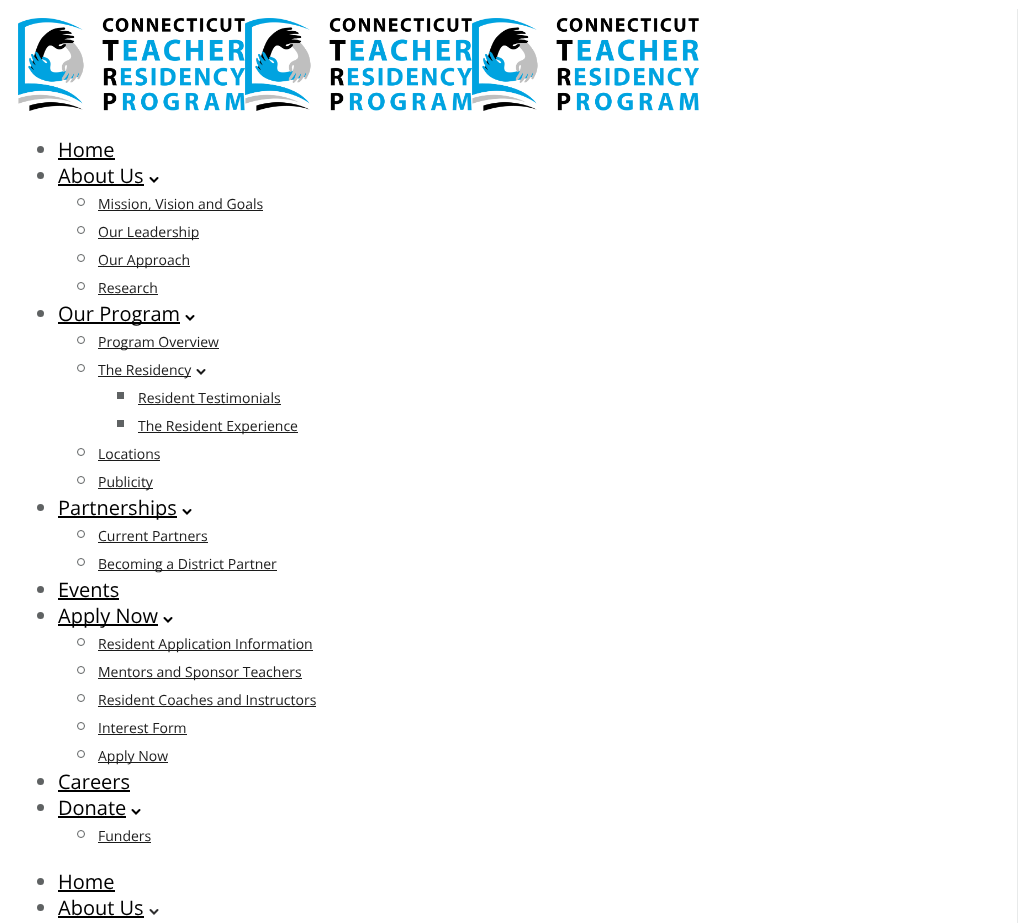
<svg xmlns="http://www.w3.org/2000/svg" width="1025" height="923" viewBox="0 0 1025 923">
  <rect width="100%" height="100%" fill="rgb(255,255,255)"/>
  <path d="M9 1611V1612H1018V9H1017V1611Z" fill="rgb(232,234,234)"/>
  <image x="18" y="18" width="227" height="93" href="pic1.png"/>
  <image x="245" y="18" width="227" height="93" href="pic1.png"/>
  <image x="472" y="18" width="227" height="93" href="pic1.png"/>
  <circle cx="40.5" cy="149.5" r="3.5" fill="rgb(95,98,99)"/>
  <text x="58" y="157" font-family="Open Sans" font-size="20" fill="rgb(0,0,0)">Home</text>
  <rect x="58" y="158" width="57" height="2" fill="rgb(0,0,0)"/>
  <circle cx="40.5" cy="175.5" r="3.5" fill="rgb(95,98,99)"/>
  <text x="58" y="183" font-family="Open Sans" font-size="20" fill="rgb(0,0,0)">About Us</text>
  <rect x="58" y="184" width="86" height="2" fill="rgb(0,0,0)"/>
  <path d="M157.5 178L154 181.5L150.5 178" fill="none" stroke="rgb(0,0,0)" stroke-width="2" stroke-linecap="round"/>
  <circle cx="81" cy="202" r="3.5" fill="none" stroke="rgb(95,98,99)"/>
  <rect x="98" y="210" width="165" height="1" fill="rgb(28,28,28)"/>
  <text x="98" y="209" font-family="Open Sans" font-size="14" fill="rgb(28,28,28)">Mission, Vision and Goals</text>
  <circle cx="81" cy="230" r="3.5" fill="none" stroke="rgb(95,98,99)"/>
  <rect x="98" y="238" width="101" height="1" fill="rgb(28,28,28)"/>
  <text x="98" y="237" font-family="Open Sans" font-size="14" fill="rgb(28,28,28)">Our Leadership</text>
  <circle cx="81" cy="258" r="3.5" fill="none" stroke="rgb(95,98,99)"/>
  <rect x="98" y="266" width="92" height="1" fill="rgb(28,28,28)"/>
  <text x="98" y="265" font-family="Open Sans" font-size="14" fill="rgb(28,28,28)">Our Approach</text>
  <circle cx="81" cy="286" r="3.5" fill="none" stroke="rgb(95,98,99)"/>
  <text x="98" y="293" font-family="Open Sans" font-size="14" fill="rgb(28,28,28)">Research</text>
  <rect x="98" y="294" width="60" height="1" fill="rgb(28,28,28)"/>
  <circle cx="40.5" cy="313.5" r="3.5" fill="rgb(95,98,99)"/>
  <rect x="58" y="322" width="122" height="2" fill="rgb(0,0,0)"/>
  <text x="58" y="321" font-family="Open Sans" font-size="20" fill="rgb(0,0,0)">Our Program</text>
  <path d="M193.5 316L190 319.5L186.5 316" fill="none" stroke="rgb(0,0,0)" stroke-width="2" stroke-linecap="round"/>
  <circle cx="81" cy="340" r="3.5" fill="none" stroke="rgb(95,98,99)"/>
  <rect x="98" y="348" width="121" height="1" fill="rgb(28,28,28)"/>
  <text x="98" y="347" font-family="Open Sans" font-size="14" fill="rgb(28,28,28)">Program Overview</text>
  <circle cx="81" cy="368" r="3.5" fill="none" stroke="rgb(95,98,99)"/>
  <rect x="98" y="376" width="93" height="1" fill="rgb(28,28,28)"/>
  <text x="98" y="375" font-family="Open Sans" font-size="14" fill="rgb(28,28,28)">The Residency</text>
  <path d="M204.5 370L201 373.5L197.5 370" fill="none" stroke="rgb(28,28,28)" stroke-width="2" stroke-linecap="round"/>
  <rect x="117" y="392" width="7" height="7" fill="rgb(95,98,99)"/>
  <text x="138" y="403" font-family="Open Sans" font-size="14" fill="rgb(28,28,28)">Resident Testimonials</text>
  <rect x="138" y="404" width="143" height="1" fill="rgb(28,28,28)"/>
  <rect x="117" y="420" width="7" height="7" fill="rgb(95,98,99)"/>
  <rect x="138" y="432" width="160" height="1" fill="rgb(28,28,28)"/>
  <text x="138" y="431" font-family="Open Sans" font-size="14" fill="rgb(28,28,28)">The Resident Experience</text>
  <circle cx="81" cy="452" r="3.5" fill="none" stroke="rgb(95,98,99)"/>
  <text x="98" y="459" font-family="Open Sans" font-size="14" fill="rgb(28,28,28)">Locations</text>
  <rect x="98" y="460" width="62" height="1" fill="rgb(28,28,28)"/>
  <circle cx="81" cy="480" r="3.5" fill="none" stroke="rgb(95,98,99)"/>
  <rect x="98" y="488" width="55" height="1" fill="rgb(28,28,28)"/>
  <text x="98" y="487" font-family="Open Sans" font-size="14" fill="rgb(28,28,28)">Publicity</text>
  <circle cx="40.5" cy="507.5" r="3.5" fill="rgb(95,98,99)"/>
  <rect x="58" y="516" width="119" height="2" fill="rgb(0,0,0)"/>
  <text x="58" y="515" font-family="Open Sans" font-size="20" fill="rgb(0,0,0)">Partnerships</text>
  <path d="M190.5 510L187 513.5L183.5 510" fill="none" stroke="rgb(0,0,0)" stroke-width="2" stroke-linecap="round"/>
  <circle cx="81" cy="534" r="3.5" fill="none" stroke="rgb(95,98,99)"/>
  <text x="98" y="541" font-family="Open Sans" font-size="14" fill="rgb(28,28,28)">Current Partners</text>
  <rect x="98" y="542" width="110" height="1" fill="rgb(28,28,28)"/>
  <circle cx="81" cy="562" r="3.5" fill="none" stroke="rgb(95,98,99)"/>
  <rect x="98" y="570" width="179" height="1" fill="rgb(28,28,28)"/>
  <text x="98" y="569" font-family="Open Sans" font-size="14" fill="rgb(28,28,28)">Becoming a District Partner</text>
  <circle cx="40.5" cy="589.5" r="3.5" fill="rgb(95,98,99)"/>
  <text x="58" y="597" font-family="Open Sans" font-size="20" fill="rgb(0,0,0)">Events</text>
  <rect x="58" y="598" width="61" height="2" fill="rgb(0,0,0)"/>
  <circle cx="40.5" cy="615.5" r="3.5" fill="rgb(95,98,99)"/>
  <rect x="58" y="624" width="100" height="2" fill="rgb(0,0,0)"/>
  <text x="58" y="623" font-family="Open Sans" font-size="20" fill="rgb(0,0,0)">Apply Now</text>
  <path d="M171.5 618L168 621.5L164.5 618" fill="none" stroke="rgb(0,0,0)" stroke-width="2" stroke-linecap="round"/>
  <circle cx="81" cy="642" r="3.5" fill="none" stroke="rgb(95,98,99)"/>
  <rect x="98" y="650" width="215" height="1" fill="rgb(28,28,28)"/>
  <text x="98" y="649" font-family="Open Sans" font-size="14" fill="rgb(28,28,28)">Resident Application Information</text>
  <circle cx="81" cy="670" r="3.5" fill="none" stroke="rgb(95,98,99)"/>
  <rect x="98" y="678" width="204" height="1" fill="rgb(28,28,28)"/>
  <text x="98" y="677" font-family="Open Sans" font-size="14" fill="rgb(28,28,28)">Mentors and Sponsor Teachers</text>
  <circle cx="81" cy="698" r="3.5" fill="none" stroke="rgb(95,98,99)"/>
  <text x="98" y="705" font-family="Open Sans" font-size="14" fill="rgb(28,28,28)">Resident Coaches and Instructors</text>
  <rect x="98" y="706" width="218" height="1" fill="rgb(28,28,28)"/>
  <circle cx="81" cy="726" r="3.5" fill="none" stroke="rgb(95,98,99)"/>
  <text x="98" y="733" font-family="Open Sans" font-size="14" fill="rgb(28,28,28)">Interest Form</text>
  <rect x="98" y="734" width="89" height="1" fill="rgb(28,28,28)"/>
  <circle cx="81" cy="754" r="3.5" fill="none" stroke="rgb(95,98,99)"/>
  <rect x="98" y="762" width="70" height="1" fill="rgb(28,28,28)"/>
  <text x="98" y="761" font-family="Open Sans" font-size="14" fill="rgb(28,28,28)">Apply Now</text>
  <circle cx="40.5" cy="781.5" r="3.5" fill="rgb(95,98,99)"/>
  <text x="58" y="789" font-family="Open Sans" font-size="20" fill="rgb(0,0,0)">Careers</text>
  <rect x="58" y="790" width="72" height="2" fill="rgb(0,0,0)"/>
  <circle cx="40.5" cy="807.5" r="3.5" fill="rgb(95,98,99)"/>
  <text x="58" y="815" font-family="Open Sans" font-size="20" fill="rgb(0,0,0)">Donate</text>
  <rect x="58" y="816" width="68" height="2" fill="rgb(0,0,0)"/>
  <path d="M139.5 810L136 813.5L132.5 810" fill="none" stroke="rgb(0,0,0)" stroke-width="2" stroke-linecap="round"/>
  <circle cx="81" cy="834" r="3.5" fill="none" stroke="rgb(95,98,99)"/>
  <text x="98" y="841" font-family="Open Sans" font-size="14" fill="rgb(28,28,28)">Funders</text>
  <rect x="98" y="842" width="53" height="1" fill="rgb(28,28,28)"/>
  <circle cx="40.5" cy="881.5" r="3.5" fill="rgb(95,98,99)"/>
  <text x="58" y="889" font-family="Open Sans" font-size="20" fill="rgb(0,0,0)">Home</text>
  <rect x="58" y="890" width="57" height="2" fill="rgb(0,0,0)"/>
  <circle cx="40.5" cy="907.5" r="3.5" fill="rgb(95,98,99)"/>
  <text x="58" y="915" font-family="Open Sans" font-size="20" fill="rgb(0,0,0)">About Us</text>
  <rect x="58" y="916" width="86" height="2" fill="rgb(0,0,0)"/>
  <path d="M157.5 910L154 913.5L150.5 910" fill="none" stroke="rgb(47,47,48)" stroke-width="2" stroke-linecap="round"/>
</svg>
